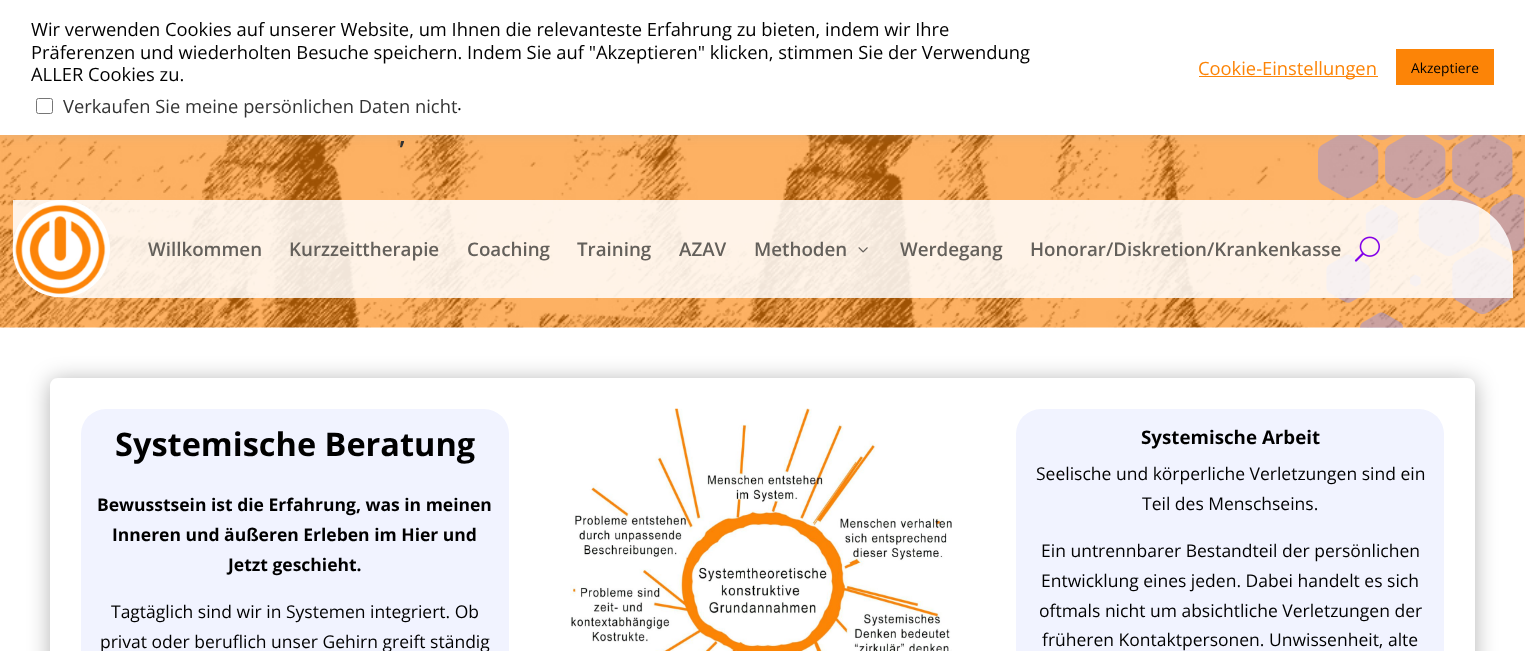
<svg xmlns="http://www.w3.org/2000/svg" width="1525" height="651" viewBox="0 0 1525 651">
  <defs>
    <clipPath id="clip1"><path d="M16 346H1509V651H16ZM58 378H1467C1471.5 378 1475 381.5 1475 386V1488C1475 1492.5 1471.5 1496 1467 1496H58C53.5 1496 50 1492.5 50 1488V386C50 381.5 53.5 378 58 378Z" clip-rule="evenodd"/></clipPath>
  </defs>
  <rect width="100%" height="100%" fill="rgb(255,255,255)"/>
  <image x="0" y="135" width="1525" height="193" href="pic1.png"/>
  <image x="1318" y="135" width="207" height="193" href="pic5.png"/>
  <rect x="0" y="-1" width="1525" height="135" fill="rgba(172,171,171,0.3)" filter="blur(6px)"/>
  <rect x="0" y="0" width="1525" height="135" fill="rgb(255,255,255)"/>
  <g font-family="Open Sans" font-size="18.33" fill="rgb(0,0,0)">
    <text>
      <tspan x="31" y="36">Wir verwenden Cookies auf unserer Website, um Ihnen die relevanteste Erfahrung zu bieten, indem wir Ihre</tspan>
      <tspan x="31" y="59">Präferenzen und wiederholten Besuche speichern. Indem Sie auf "Akzeptieren" klicken, stimmen Sie der Verwendung</tspan>
      <tspan x="31" y="81">ALLER Cookies zu.</tspan>
    </text>
  </g>
  <rect x="36.5" y="98.5" width="16" height="15" rx="2" fill="none" stroke="rgb(118,118,118)"/>
  <text x="63" y="113" font-family="Open Sans" font-size="18.33" fill="rgb(51,51,51)">Verkaufen Sie meine persönlichen Daten nicht</text>
  <text x="457" y="110" font-family="Open Sans" font-size="18.33" fill="rgb(0,0,0)">.</text>
  <rect x="1199" y="76" width="179" height="1" fill="rgb(252,132,7)"/>
  <text x="1198" y="75" font-family="Open Sans" font-size="18.33" fill="rgb(252,132,7)">Cookie-Einstellungen</text>
  <rect x="1396" y="49" width="98" height="36" fill="rgb(252,132,7)"/>
  <text x="1411" y="73" font-family="Open Sans" font-size="13.75" fill="rgb(0,0,0)">Akzeptiere</text>
  <text x="399" y="144" font-family="Open Sans" font-size="25" font-weight="600" fill="rgb(51,51,51)">,</text>
  <path d="M13 200H1450C1485 200 1513 228 1513 263V298H76C41 298 13 270 13 235Z" fill="rgba(255,255,255,0.85)"/>
  <image x="12" y="200" width="98" height="98" href="pic2.png"/>
  <g font-family="Open Sans" font-size="18.75" font-weight="600" fill="rgb(100,96,91)">
    <text x="148" y="256">Willkommen</text>
    <text x="289" y="256">Kurzzeittherapie</text>
    <text x="467" y="256">Coaching</text>
    <text x="577" y="256">Training</text>
    <text x="679" y="256">AZAV</text>
    <text x="754" y="256">Methoden</text>
  </g>
  <image x="858" y="247" width="10" height="6" href="pic3.png"/>
  <g font-family="Open Sans" font-size="18.75" font-weight="600" fill="rgb(100,96,91)">
    <text x="900" y="256">Werdegang</text>
    <text x="1030" y="256">Honorar/Diskretion/Krankenkasse</text>
  </g>
  <image x="1354" y="236" width="26" height="26" href="pic4.png"/>
  <g clip-path="url(#clip1)">
    <rect x="50" y="380" width="1425" height="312" rx="8" fill="rgba(0,0,0,0.3)" filter="blur(11px)"/>
  </g>
  <rect x="81" y="409" width="428" height="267" rx="25" fill="rgb(241,243,255)"/>
  <text x="115" y="456" font-family="Open Sans" font-size="32.5" font-weight="bold" fill="rgb(0,0,0)">Systemische Beratung</text>
  <g font-family="Open Sans" font-size="17.5" font-weight="bold" fill="rgb(0,0,0)">
    <text x="97" y="511">Bewusstsein ist die Erfahrung, was in meinen</text>
    <text x="112" y="541">Inneren und äußeren Erleben im Hier und</text>
    <text x="228" y="571">Jetzt geschieht.</text>
  </g>
  <g font-family="Open Sans" font-size="17.5" fill="rgb(0,0,0)">
    <text x="111" y="618">Tagtäglich sind wir in Systemen integriert. Ob</text>
    <text x="100" y="648">privat oder beruflich unser Gehirn greift ständig</text>
  </g>
  <image x="570" y="408" width="382" height="243" href="pic6.png"/>
  <rect x="1016" y="409" width="428" height="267" rx="25" fill="rgb(241,243,255)"/>
  <text x="1141" y="444" font-family="Open Sans" font-size="18.75" font-weight="bold" fill="rgb(0,0,0)">Systemische Arbeit</text>
  <g font-family="Open Sans" font-size="17.5" fill="rgb(0,0,0)">
    <text x="1036" y="480">Seelische und körperliche Verletzungen sind ein</text>
    <text x="1142" y="510">Teil des Menschseins.</text>
    <text>
      <tspan x="1041" y="557">Ein untrennbarer Bestandteil der persönlichen</tspan>
      <tspan x="1041" y="587">Entwicklung eines jeden. Dabei handelt es sich</tspan>
    </text>
    <text x="1039" y="617">oftmals nicht um absichtliche Verletzungen der</text>
    <text x="1042" y="646">früheren Kontaktpersonen. Unwissenheit, alte</text>
  </g>
</svg>
